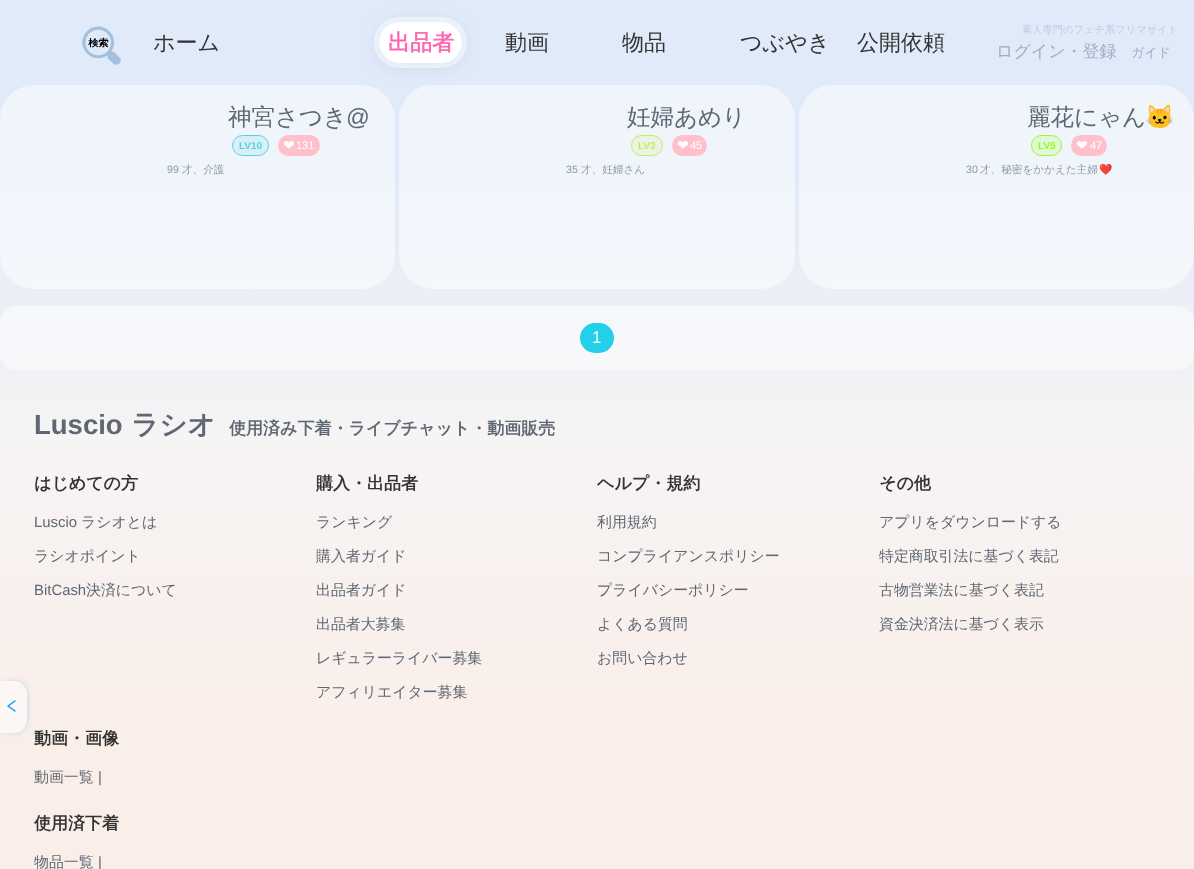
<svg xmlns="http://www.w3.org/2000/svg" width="1194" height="869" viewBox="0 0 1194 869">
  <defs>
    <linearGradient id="g1" gradientUnits="userSpaceOnUse" x1="597" y1="0" x2="597" y2="869"><stop offset="0.2" stop-color="rgb(225,234,249)"/><stop offset="0.5" stop-color="rgb(246,244,244)"/><stop offset="0.85" stop-color="rgb(250,238,233)"/></linearGradient>
    <clipPath id="clip1"><path d="M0 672H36V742H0ZM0 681H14C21 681 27 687 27 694V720C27 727 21 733 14 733H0Z" clip-rule="evenodd"/></clipPath>
  </defs>
  <rect width="100%" height="100%" fill="rgb(255,255,255)"/>
  <rect x="0" y="0" width="1194" height="869" fill="url(#g1)"/>
  <image x="82" y="26" width="39" height="39" href="pic1.png"/>
  <text x="153" y="50" font-family="WenQuanYi Zen Hei" font-size="22" font-weight="500" fill="rgb(51,51,51)">ホーム</text>
  <rect x="0" y="85" width="395" height="204" rx="34" fill="rgba(255,255,255,0.5)"/>
  <rect x="399" y="85" width="396" height="204" rx="34" fill="rgba(255,255,255,0.5)"/>
  <rect x="379" y="24" width="83" height="41" rx="20.5" fill="rgba(98,138,173,0.25)" filter="blur(8.5px)"/>
  <rect x="376.5" y="19.5" width="88" height="46" rx="23" fill="none" stroke="rgba(255,255,255,0.5)" stroke-width="5"/>
  <rect x="379" y="22" width="83" height="41" rx="20.5" fill="rgb(255,255,255)"/>
  <text x="388" y="50" font-family="WenQuanYi Zen Hei" font-size="22" font-weight="bold" fill="rgb(255,105,180)">出品者</text>
  <g font-family="WenQuanYi Zen Hei" font-size="22" font-weight="500" fill="rgb(51,51,51)">
    <text x="505" y="50">動画</text>
    <text x="622" y="50">物品</text>
    <text x="740" y="50">つぶやき</text>
    <text x="857" y="50">公開依頼</text>
  </g>
  <text x="1022" y="33" font-family="WenQuanYi Zen Hei" font-size="10.25" font-weight="500" fill="rgb(187,205,227)">素人専門のフェチ系フリマサイト</text>
  <text x="996" y="57" font-family="WenQuanYi Zen Hei" font-size="17" font-weight="500" fill="rgb(158,174,195)">ログイン・登録</text>
  <text x="1131" y="57" font-family="WenQuanYi Zen Hei" font-size="13" font-weight="500" fill="rgb(158,174,195)">ガイド</text>
  <text x="228" y="125" font-family="WenQuanYi Zen Hei" font-size="23.5" font-weight="500" fill="rgb(94,103,115)">神宮さつき</text>
  <text x="346" y="125" font-family="Liberation Sans" font-size="23.5" fill="rgb(94,103,115)">@</text>
  <rect x="232.5" y="135.5" width="36" height="20" rx="10" fill="rgb(217,239,247)" stroke="rgb(85,211,221)"/>
  <text x="239" y="149" font-family="Liberation Sans" font-size="10" font-weight="bold" fill="rgb(85,211,221)">LV10</text>
  <rect x="278" y="135" width="42" height="21" rx="10.5" fill="rgb(255,192,203)"/>
  <text x="283" y="150" font-family="DejaVu Sans" font-size="14" fill="rgb(255,255,255)">❤︎</text>
  <text x="296" y="149" font-family="Liberation Sans" font-size="11" fill="rgb(255,255,255)">131</text>
  <text x="167" y="173" font-family="Liberation Sans" font-size="10.6" fill="rgb(145,153,163)">99</text>
  <text x="182" y="173" font-family="WenQuanYi Zen Hei" font-size="10.6" font-weight="500" fill="rgb(145,153,163)">才、介護</text>
  <text x="627" y="125" font-family="WenQuanYi Zen Hei" font-size="23.5" font-weight="500" fill="rgb(94,103,115)">妊婦あめり</text>
  <rect x="631.5" y="135.5" width="31" height="20" rx="10" fill="rgb(234,243,228)" stroke="rgb(200,234,89)"/>
  <text x="638" y="149" font-family="Liberation Sans" font-size="10" font-weight="bold" fill="rgb(200,234,89)">LV3</text>
  <rect x="672" y="135" width="35" height="21" rx="10.5" fill="rgb(255,192,203)"/>
  <text x="677" y="150" font-family="DejaVu Sans" font-size="14" fill="rgb(255,255,255)">❤︎</text>
  <text x="690" y="149" font-family="Liberation Sans" font-size="11" fill="rgb(255,255,255)">45</text>
  <text x="566" y="173" font-family="Liberation Sans" font-size="10.6" fill="rgb(145,153,163)">35</text>
  <text x="581" y="173" font-family="WenQuanYi Zen Hei" font-size="10.6" font-weight="500" fill="rgb(145,153,163)">才、妊婦さん</text>
  <rect x="799" y="85" width="395" height="204" rx="34" fill="rgba(255,255,255,0.5)"/>
  <text x="1027" y="125" font-family="WenQuanYi Zen Hei" font-size="23.5" font-weight="500" fill="rgb(94,103,115)">麗花にゃん</text>
  <text x="1145" y="125" font-family="Noto Color Emoji" font-size="23.5" fill="rgb(94,103,115)">🐱</text>
  <rect x="1031.5" y="135.5" width="30" height="20" rx="10" fill="rgb(226,246,218)" stroke="rgb(144,255,24)"/>
  <text x="1038" y="149" font-family="Liberation Sans" font-size="10" font-weight="bold" fill="rgb(144,255,24)">LV5</text>
  <rect x="1071" y="135" width="36" height="21" rx="10.5" fill="rgb(255,192,203)"/>
  <text x="1076" y="150" font-family="DejaVu Sans" font-size="14" fill="rgb(255,255,255)">❤︎</text>
  <text x="1090" y="149" font-family="Liberation Sans" font-size="11" fill="rgb(255,255,255)">47</text>
  <text x="966" y="173" font-family="Liberation Sans" font-size="10.6" fill="rgb(145,153,163)">30</text>
  <text x="980" y="173" font-family="WenQuanYi Zen Hei" font-size="10.6" font-weight="500" fill="rgb(145,153,163)">才、秘密をかかえた主婦</text>
  <text x="1099" y="173" font-family="Noto Color Emoji" font-size="10.6" fill="rgb(145,153,163)">❤️</text>
  <rect x="0" y="306" width="1194" height="64" rx="17" fill="rgba(255,255,255,0.5)"/>
  <rect x="580" y="323" width="34" height="30" rx="15" fill="rgb(34,208,236)"/>
  <text x="592" y="343" font-family="Liberation Sans" font-size="17" fill="rgb(255,255,255)">1</text>
  <text x="34" y="434" font-family="Liberation Sans" font-size="27.5" font-weight="bold" fill="rgb(94,103,115)">Luscio</text>
  <text x="131" y="434" font-family="WenQuanYi Zen Hei" font-size="27.5" font-weight="bold" fill="rgb(94,103,115)">ラシオ</text>
  <text x="229" y="434" font-family="WenQuanYi Zen Hei" font-size="17" font-weight="bold" fill="rgb(94,103,115)">使用済み下着・ライブチャット・動画販売</text>
  <text x="34" y="489" font-family="WenQuanYi Zen Hei" font-size="17" font-weight="bold" fill="rgb(51,51,51)">はじめての方</text>
  <text x="34" y="527" font-family="Liberation Sans" font-size="14.9" fill="rgb(94,103,115)">Luscio</text>
  <g font-family="WenQuanYi Zen Hei" font-size="14.9" font-weight="500" fill="rgb(94,103,115)">
    <text x="81" y="527">ラシオとは</text>
    <text x="34" y="561">ラシオポイント</text>
  </g>
  <text x="34" y="595" font-family="Liberation Sans" font-size="14.9" fill="rgb(94,103,115)">BitCash</text>
  <text x="86" y="595" font-family="WenQuanYi Zen Hei" font-size="14.9" font-weight="500" fill="rgb(94,103,115)">決済について</text>
  <text x="316" y="489" font-family="WenQuanYi Zen Hei" font-size="17" font-weight="bold" fill="rgb(51,51,51)">購入・出品者</text>
  <g font-family="WenQuanYi Zen Hei" font-size="14.9" font-weight="500" fill="rgb(94,103,115)">
    <text x="316" y="527">ランキング</text>
    <text x="316" y="561">購入者ガイド</text>
    <text x="316" y="595">出品者ガイド</text>
    <text x="316" y="629">出品者大募集</text>
    <text x="316" y="663">レギュラーライバー募集</text>
    <text x="316" y="697">アフィリエイター募集</text>
  </g>
  <text x="597" y="489" font-family="WenQuanYi Zen Hei" font-size="17" font-weight="bold" fill="rgb(51,51,51)">ヘルプ・規約</text>
  <g font-family="WenQuanYi Zen Hei" font-size="14.9" font-weight="500" fill="rgb(94,103,115)">
    <text x="597" y="527">利用規約</text>
    <text x="597" y="561">コンプライアンスポリシー</text>
    <text x="597" y="595">プライバシーポリシー</text>
    <text x="597" y="629">よくある質問</text>
    <text x="597" y="663">お問い合わせ</text>
  </g>
  <text x="879" y="489" font-family="WenQuanYi Zen Hei" font-size="17" font-weight="bold" fill="rgb(51,51,51)">その他</text>
  <g font-family="WenQuanYi Zen Hei" font-size="14.9" font-weight="500" fill="rgb(94,103,115)">
    <text x="879" y="527">アプリをダウンロードする</text>
    <text x="879" y="561">特定商取引法に基づく表記</text>
    <text x="879" y="595">古物営業法に基づく表記</text>
    <text x="879" y="629">資金決済法に基づく表示</text>
  </g>
  <g clip-path="url(#clip1)">
    <rect x="4" y="685" width="19" height="44" rx="9" fill="rgb(0,161,255)" filter="blur(4px)"/>
  </g>
  <path d="M0 681H14C21 681 27 687 27 694V720C27 727 21 733 14 733H0Z" fill="rgba(255,255,255,0.5)"/>
  <path d="M15 701L8 706L15 711" fill="none" stroke="rgb(0,161,255)" stroke-width="1.5" stroke-linecap="round" stroke-linejoin="round"/>
  <text x="34" y="744" font-family="WenQuanYi Zen Hei" font-size="17" font-weight="bold" fill="rgb(51,51,51)">動画・画像</text>
  <text x="34" y="782" font-family="WenQuanYi Zen Hei" font-size="14.9" font-weight="500" fill="rgb(94,103,115)">動画一覧</text>
  <text x="98" y="782" font-family="Liberation Sans" font-size="14.9" fill="rgb(94,103,115)">|</text>
  <text x="34" y="829" font-family="WenQuanYi Zen Hei" font-size="17" font-weight="bold" fill="rgb(51,51,51)">使用済下着</text>
  <text x="34" y="867" font-family="WenQuanYi Zen Hei" font-size="14.9" font-weight="500" fill="rgb(94,103,115)">物品一覧</text>
  <text x="98" y="867" font-family="Liberation Sans" font-size="14.9" fill="rgb(94,103,115)">|</text>
</svg>
